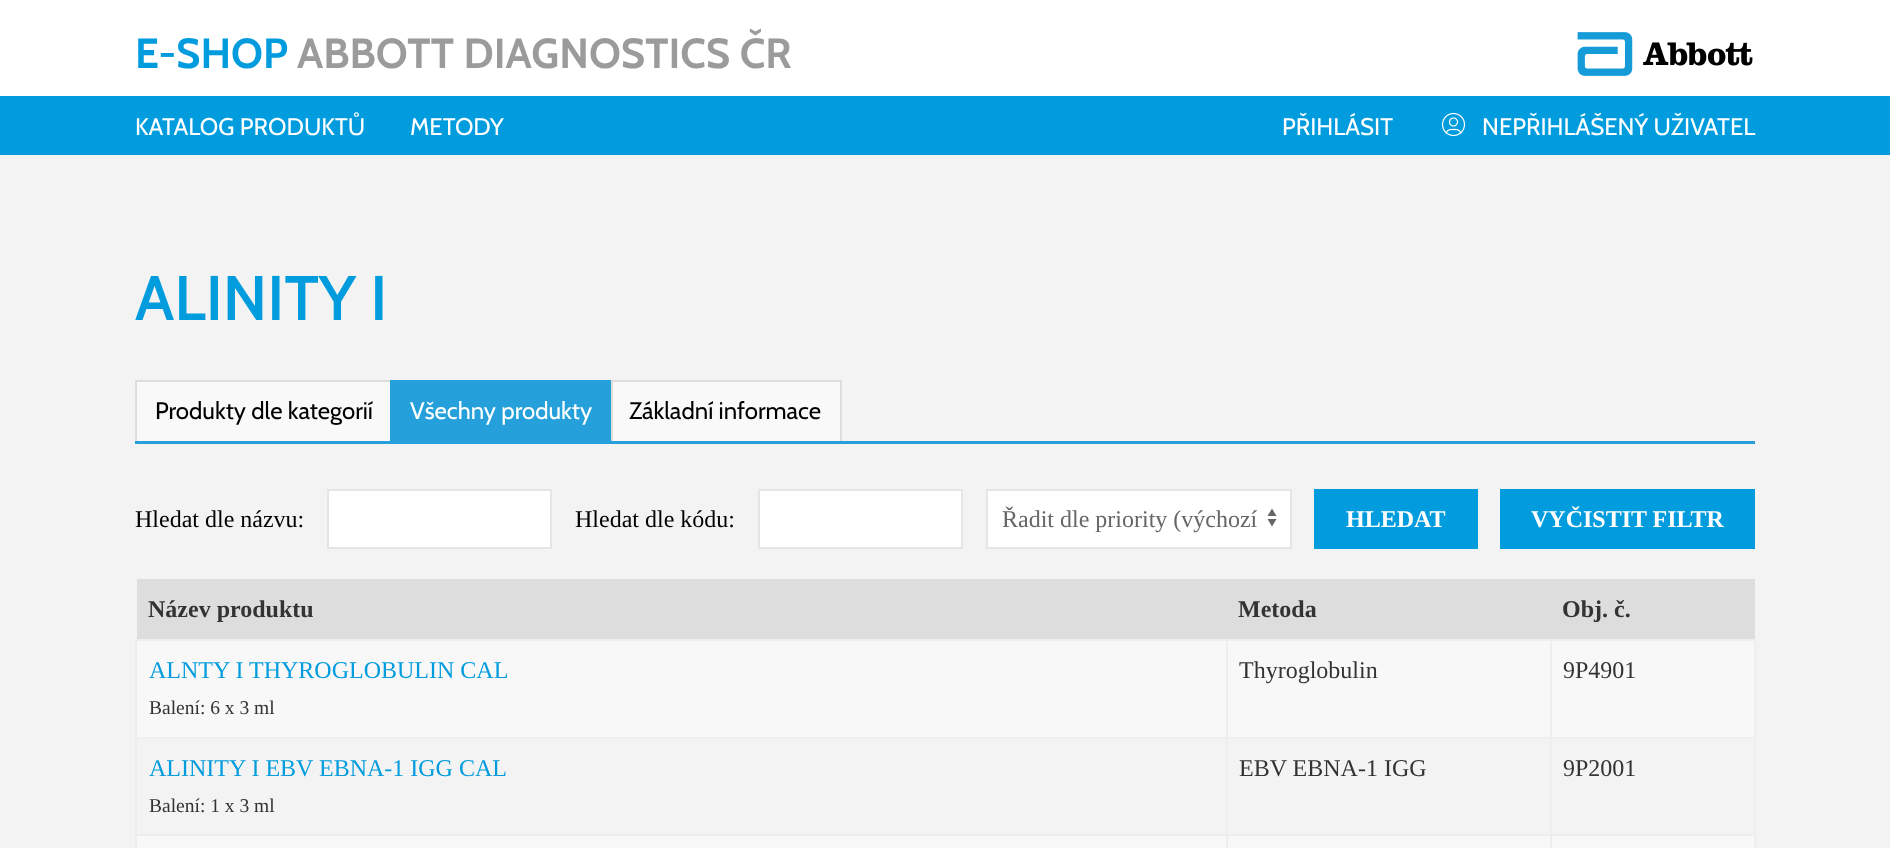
<svg xmlns="http://www.w3.org/2000/svg" width="1890" height="848" viewBox="0 0 1890 848">
  <rect width="100%" height="100%" fill="rgb(243,243,243)"/>
  <rect x="0" y="0" width="1890" height="96" fill="rgb(255,255,255)"/>
  <text x="135" y="68" font-family="Cabin" font-size="42" font-weight="bold" fill="rgb(0,156,222)">E-SHOP</text>
  <text x="297" y="68" font-family="Cabin" font-size="42" font-weight="bold" fill="rgb(155,155,155)">ABBOTT DIAGNOSTICS ČR</text>
  <image x="1577" y="32" width="176" height="44" href="pic1.png"/>
  <rect x="0" y="96" width="1890" height="59" fill="rgb(0,156,222)"/>
  <g font-family="Cabin" font-size="24" fill="rgb(255,255,255)">
    <text x="135" y="135">KATALOG PRODUKTŮ</text>
    <text x="410" y="135">METODY</text>
    <text x="1282" y="135">PŘIHLÁSIT</text>
  </g>
  <image x="1441" y="112" width="25" height="25" href="pic2.png"/>
  <text x="1482" y="135" font-family="Cabin" font-size="24" fill="rgb(255,255,255)">NEPŘIHLÁŠENÝ UŽIVATEL</text>
  <text x="135" y="320" font-family="Cabin" font-size="63" font-weight="600" fill="rgb(0,156,222)">ALINITY I</text>
  <rect x="137" y="382" width="253" height="59" fill="rgb(249,249,249)"/>
  <rect x="135" y="380" width="255" height="2" fill="rgb(221,221,221)"/>
  <rect x="135" y="380" width="2" height="61" fill="rgb(221,221,221)"/>
  <text x="155" y="419" font-family="Cabin" font-size="24" fill="rgb(0,0,0)">Produkty dle kategorií</text>
  <rect x="390" y="380" width="221" height="61" fill="rgb(37,160,218)"/>
  <text x="410" y="419" font-family="Cabin" font-size="24" fill="rgb(255,255,255)">Všechny produkty</text>
  <rect x="613" y="382" width="227" height="59" fill="rgb(249,249,249)"/>
  <rect x="611" y="380" width="231" height="2" fill="rgb(221,221,221)"/>
  <rect x="840" y="380" width="2" height="61" fill="rgb(221,221,221)"/>
  <rect x="611" y="380" width="2" height="61" fill="rgb(221,221,221)"/>
  <text x="629" y="419" font-family="Cabin" font-size="24" fill="rgb(0,0,0)">Základní informace</text>
  <rect x="135" y="441" width="1620" height="3" fill="rgb(37,160,218)"/>
  <text x="135" y="527" font-family="Tinos" font-size="24" fill="rgb(0,0,0)">Hledat dle názvu:</text>
  <rect x="328" y="490" width="223" height="58" fill="rgb(255,255,255)" stroke="rgb(229,229,229)" stroke-width="2"/>
  <text x="575" y="527" font-family="Tinos" font-size="24" fill="rgb(0,0,0)">Hledat dle kódu:</text>
  <rect x="759" y="490" width="203" height="58" fill="rgb(255,255,255)" stroke="rgb(229,229,229)" stroke-width="2"/>
  <rect x="988" y="491" width="302" height="56" fill="rgb(255,255,255)"/>
  <image x="1267" y="508" width="10" height="19" href="pic3.png"/>
  <rect x="987" y="490" width="304" height="58" fill="none" stroke="rgb(229,229,229)" stroke-width="2"/>
  <text x="1002" y="527" font-family="Tinos" font-size="24" fill="rgb(102,102,102)">Řadit dle priority (výchozí</text>
  <rect x="1314" y="489" width="164" height="60" fill="rgb(0,156,222)"/>
  <text x="1346" y="527" font-family="Tinos" font-size="24" font-weight="bold" fill="rgb(255,255,255)">HLEDAT</text>
  <rect x="1500" y="489" width="255" height="60" fill="rgb(0,156,222)"/>
  <text x="1531" y="527" font-family="Tinos" font-size="24" font-weight="bold" fill="rgb(255,255,255)">VYČISTIT FILTR</text>
  <rect x="137" y="579" width="1618" height="60" fill="rgb(221,221,221)"/>
  <g font-family="Tinos" font-size="24" font-weight="bold" fill="rgb(51,51,51)">
    <text x="148" y="617">Název produktu</text>
    <text x="1238" y="617">Metoda</text>
    <text x="1562" y="617">Obj. č.</text>
  </g>
  <rect x="135" y="639" width="2" height="209" fill="rgb(238,238,238)"/>
  <rect x="137" y="641" width="1617" height="96" fill="rgb(248,248,248)"/>
  <rect x="135" y="639" width="1620" height="2" fill="rgb(238,238,238)"/>
  <rect x="135" y="737" width="1620" height="2" fill="rgb(238,238,238)"/>
  <rect x="135" y="834" width="1620" height="2" fill="rgb(238,238,238)"/>
  <rect x="137" y="836" width="1617" height="12" fill="rgb(248,248,248)"/>
  <rect x="1226" y="834" width="2" height="14" fill="rgb(238,238,238)"/>
  <rect x="1226" y="737" width="2" height="99" fill="rgb(238,238,238)"/>
  <rect x="1226" y="639" width="2" height="99" fill="rgb(238,238,238)"/>
  <text x="149" y="678" font-family="Tinos" font-size="24" fill="rgb(0,156,222)">ALNTY I THYROGLOBULIN CAL</text>
  <text x="149" y="714" font-family="Tinos" font-size="19.5" fill="rgb(51,51,51)">Balení: 6 x 3 ml</text>
  <rect x="1550" y="834" width="2" height="14" fill="rgb(238,238,238)"/>
  <rect x="1550" y="737" width="2" height="99" fill="rgb(238,238,238)"/>
  <rect x="1550" y="639" width="2" height="99" fill="rgb(238,238,238)"/>
  <text x="1239" y="678" font-family="Tinos" font-size="24" fill="rgb(51,51,51)">Thyroglobulin</text>
  <rect x="1754" y="834" width="2" height="14" fill="rgb(238,238,238)"/>
  <rect x="1754" y="737" width="2" height="99" fill="rgb(238,238,238)"/>
  <rect x="1754" y="639" width="2" height="99" fill="rgb(238,238,238)"/>
  <text x="1563" y="678" font-family="Tinos" font-size="24" fill="rgb(51,51,51)">9P4901</text>
  <text x="149" y="776" font-family="Tinos" font-size="24" fill="rgb(0,156,222)">ALINITY I EBV EBNA-1 IGG CAL</text>
  <text x="149" y="812" font-family="Tinos" font-size="19.5" fill="rgb(51,51,51)">Balení: 1 x 3 ml</text>
  <g font-family="Tinos" font-size="24" fill="rgb(51,51,51)">
    <text x="1239" y="776">EBV EBNA-1 IGG</text>
    <text x="1563" y="776">9P2001</text>
  </g>
</svg>
